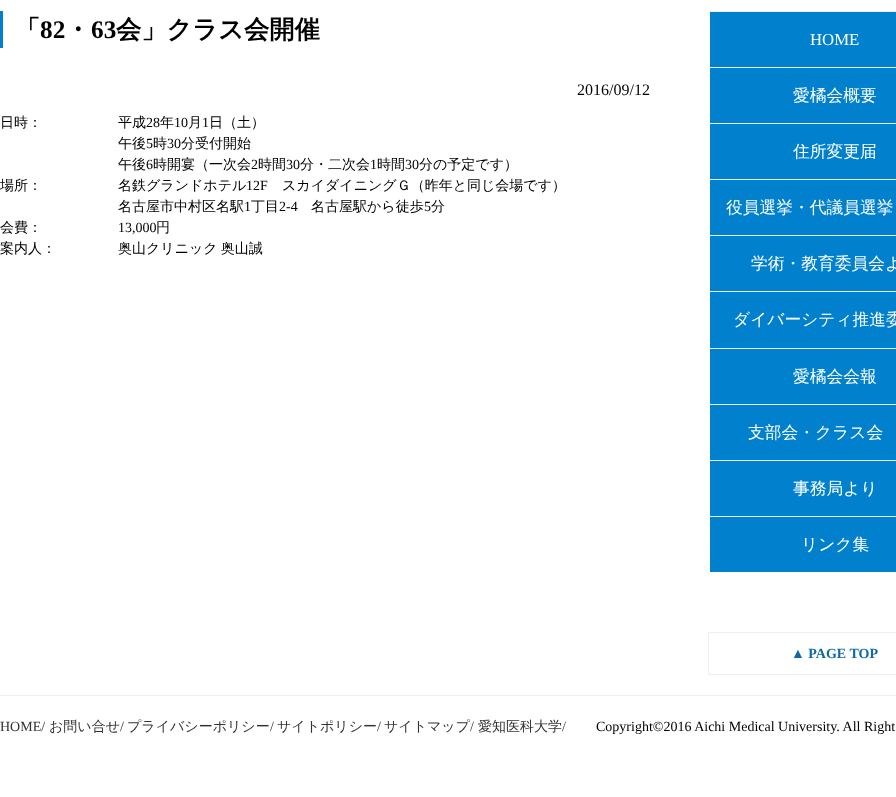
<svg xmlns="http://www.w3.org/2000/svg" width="896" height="797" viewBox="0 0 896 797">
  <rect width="100%" height="100%" fill="rgb(255,255,255)"/>
  <rect x="0" y="11" width="3" height="37" fill="rgb(1,128,205)"/>
  <text x="15" y="38" font-family="WenQuanYi Zen Hei" font-size="25.25" font-weight="bold" fill="rgb(0,0,0)">「</text>
  <text x="40" y="38" font-family="Liberation Serif" font-size="25.25" font-weight="bold" fill="rgb(0,0,0)">82</text>
  <text x="65" y="38" font-family="WenQuanYi Zen Hei" font-size="25.25" font-weight="bold" fill="rgb(0,0,0)">・</text>
  <text x="91" y="38" font-family="Liberation Serif" font-size="25.25" font-weight="bold" fill="rgb(0,0,0)">63</text>
  <text x="116" y="38" font-family="WenQuanYi Zen Hei" font-size="25.25" font-weight="bold" fill="rgb(0,0,0)">会」クラス会開催</text>
  <text x="577" y="95" font-family="Liberation Serif" font-size="16" fill="rgb(0,0,0)">2016/09/12</text>
  <g font-family="WenQuanYi Zen Hei" font-size="14" font-weight="500" fill="rgb(0,0,0)">
    <text x="0" y="127">日時：</text>
    <text x="118" y="127">平成</text>
  </g>
  <text x="146" y="127" font-family="Liberation Serif" font-size="14" fill="rgb(0,0,0)">28</text>
  <text x="160" y="127" font-family="WenQuanYi Zen Hei" font-size="14" font-weight="500" fill="rgb(0,0,0)">年</text>
  <text x="174" y="127" font-family="Liberation Serif" font-size="14" fill="rgb(0,0,0)">10</text>
  <text x="188" y="127" font-family="WenQuanYi Zen Hei" font-size="14" font-weight="500" fill="rgb(0,0,0)">月</text>
  <text x="202" y="127" font-family="Liberation Serif" font-size="14" fill="rgb(0,0,0)">1</text>
  <g font-family="WenQuanYi Zen Hei" font-size="14" font-weight="500" fill="rgb(0,0,0)">
    <text x="209" y="127">日（土）</text>
    <text x="118" y="148">午後</text>
  </g>
  <text x="146" y="148" font-family="Liberation Serif" font-size="14" fill="rgb(0,0,0)">5</text>
  <text x="153" y="148" font-family="WenQuanYi Zen Hei" font-size="14" font-weight="500" fill="rgb(0,0,0)">時</text>
  <text x="167" y="148" font-family="Liberation Serif" font-size="14" fill="rgb(0,0,0)">30</text>
  <g font-family="WenQuanYi Zen Hei" font-size="14" font-weight="500" fill="rgb(0,0,0)">
    <text x="181" y="148">分受付開始</text>
    <text x="118" y="169">午後</text>
  </g>
  <text x="146" y="169" font-family="Liberation Serif" font-size="14" fill="rgb(0,0,0)">6</text>
  <text x="153" y="169" font-family="WenQuanYi Zen Hei" font-size="14" font-weight="500" fill="rgb(0,0,0)">時開宴（一次会</text>
  <text x="251" y="169" font-family="Liberation Serif" font-size="14" fill="rgb(0,0,0)">2</text>
  <text x="258" y="169" font-family="WenQuanYi Zen Hei" font-size="14" font-weight="500" fill="rgb(0,0,0)">時間</text>
  <text x="286" y="169" font-family="Liberation Serif" font-size="14" fill="rgb(0,0,0)">30</text>
  <text x="300" y="169" font-family="WenQuanYi Zen Hei" font-size="14" font-weight="500" fill="rgb(0,0,0)">分・二次会</text>
  <text x="370" y="169" font-family="Liberation Serif" font-size="14" fill="rgb(0,0,0)">1</text>
  <text x="377" y="169" font-family="WenQuanYi Zen Hei" font-size="14" font-weight="500" fill="rgb(0,0,0)">時間</text>
  <text x="405" y="169" font-family="Liberation Serif" font-size="14" fill="rgb(0,0,0)">30</text>
  <g font-family="WenQuanYi Zen Hei" font-size="14" font-weight="500" fill="rgb(0,0,0)">
    <text x="419" y="169">分の予定です）</text>
    <text x="0" y="190">場所：</text>
    <text x="118" y="190">名鉄グランドホテル</text>
  </g>
  <text x="246" y="190" font-family="Liberation Serif" font-size="14" fill="rgb(0,0,0)">12F</text>
  <g font-family="WenQuanYi Zen Hei" font-size="14" font-weight="500" fill="rgb(0,0,0)">
    <text x="282" y="190">スカイダイニングＧ（昨年と同じ会場です）</text>
    <text x="118" y="211">名古屋市中村区名駅</text>
  </g>
  <text x="244" y="211" font-family="Liberation Serif" font-size="14" fill="rgb(0,0,0)">1</text>
  <text x="251" y="211" font-family="WenQuanYi Zen Hei" font-size="14" font-weight="500" fill="rgb(0,0,0)">丁目</text>
  <text x="279" y="211" font-family="Liberation Serif" font-size="14" fill="rgb(0,0,0)">2-4</text>
  <text x="311" y="211" font-family="WenQuanYi Zen Hei" font-size="14" font-weight="500" fill="rgb(0,0,0)">名古屋駅から徒歩</text>
  <text x="424" y="211" font-family="Liberation Serif" font-size="14" fill="rgb(0,0,0)">5</text>
  <g font-family="WenQuanYi Zen Hei" font-size="14" font-weight="500" fill="rgb(0,0,0)">
    <text x="431" y="211">分</text>
    <text x="0" y="232">会費：</text>
  </g>
  <text x="118" y="232" font-family="Liberation Serif" font-size="14" fill="rgb(0,0,0)">13,000</text>
  <g font-family="WenQuanYi Zen Hei" font-size="14" font-weight="500" fill="rgb(0,0,0)">
    <text x="156" y="232">円</text>
    <text x="0" y="253">案内人：</text>
    <text x="118" y="253" word-spacing="-1">奥山クリニック 奥山誠</text>
  </g>
  <rect x="710" y="12" width="186" height="55" fill="rgb(1,128,205)"/>
  <rect x="710" y="11" width="186" height="1" fill="rgb(238,238,238)"/>
  <text x="810" y="45" font-family="Liberation Serif" font-size="16.75" fill="rgb(255,255,255)">HOME</text>
  <rect x="710" y="68" width="186" height="55" fill="rgb(1,128,205)"/>
  <rect x="710" y="67" width="186" height="1" fill="rgb(238,238,238)"/>
  <text x="793" y="101" font-family="WenQuanYi Zen Hei" font-size="16.75" font-weight="500" fill="rgb(255,255,255)">愛橘会概要</text>
  <rect x="710" y="124" width="186" height="55" fill="rgb(1,128,205)"/>
  <rect x="710" y="123" width="186" height="1" fill="rgb(238,238,238)"/>
  <text x="793" y="157" font-family="WenQuanYi Zen Hei" font-size="16.75" font-weight="500" fill="rgb(255,255,255)">住所変更届</text>
  <rect x="710" y="180" width="186" height="55" fill="rgb(1,128,205)"/>
  <rect x="710" y="179" width="186" height="1" fill="rgb(238,238,238)"/>
  <text x="726" y="213" font-family="WenQuanYi Zen Hei" font-size="16.75" font-weight="500" fill="rgb(255,255,255)">役員選挙・代議員選挙</text>
  <rect x="710" y="236" width="186" height="55" fill="rgb(1,128,205)"/>
  <rect x="710" y="235" width="186" height="1" fill="rgb(238,238,238)"/>
  <text x="751" y="269" font-family="WenQuanYi Zen Hei" font-size="16.75" font-weight="500" fill="rgb(255,255,255)">学術・教育委員会よ</text>
  <rect x="710" y="292" width="186" height="56" fill="rgb(1,128,205)"/>
  <rect x="710" y="291" width="186" height="1" fill="rgb(238,238,238)"/>
  <text x="733" y="325" font-family="WenQuanYi Zen Hei" font-size="16.75" font-weight="500" fill="rgb(255,255,255)">ダイバーシティ推進委</text>
  <rect x="710" y="349" width="186" height="55" fill="rgb(1,128,205)"/>
  <rect x="710" y="348" width="186" height="1" fill="rgb(238,238,238)"/>
  <text x="793" y="382" font-family="WenQuanYi Zen Hei" font-size="16.75" font-weight="500" fill="rgb(255,255,255)">愛橘会会報</text>
  <rect x="710" y="405" width="186" height="55" fill="rgb(1,128,205)"/>
  <rect x="710" y="404" width="186" height="1" fill="rgb(238,238,238)"/>
  <text x="748" y="438" word-spacing="-1" font-family="WenQuanYi Zen Hei" font-size="16.75" font-weight="500" fill="rgb(255,255,255)">支部会・クラス会</text>
  <rect x="710" y="461" width="186" height="55" fill="rgb(1,128,205)"/>
  <rect x="710" y="460" width="186" height="1" fill="rgb(238,238,238)"/>
  <text x="793" y="494" font-family="WenQuanYi Zen Hei" font-size="16.75" font-weight="500" fill="rgb(255,255,255)">事務局より</text>
  <rect x="710" y="517" width="186" height="55" fill="rgb(1,128,205)"/>
  <rect x="710" y="516" width="186" height="1" fill="rgb(238,238,238)"/>
  <text x="801" y="550" font-family="WenQuanYi Zen Hei" font-size="16.75" font-weight="500" fill="rgb(255,255,255)">リンク集</text>
  <rect x="708.5" y="632.5" width="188" height="42" fill="none" stroke="rgb(238,238,238)"/>
  <text x="791" y="658" font-family="Liberation Serif" font-size="14" font-weight="bold" fill="rgb(15,106,161)">▲ PAGE TOP</text>
  <rect x="0" y="695" width="896" height="1" fill="rgb(238,238,238)"/>
  <text x="0" y="731" font-family="Liberation Serif" font-size="14" fill="rgb(51,51,51)">HOME/</text>
  <text x="49" y="731" font-family="WenQuanYi Zen Hei" font-size="14" font-weight="500" fill="rgb(51,51,51)">お問い合せ</text>
  <text x="120" y="731" font-family="Liberation Serif" font-size="14" fill="rgb(51,51,51)">/</text>
  <text x="127" y="731" font-family="WenQuanYi Zen Hei" font-size="14" font-weight="500" fill="rgb(51,51,51)">プライバシーポリシー</text>
  <text x="270" y="731" font-family="Liberation Serif" font-size="14" fill="rgb(51,51,51)">/</text>
  <text x="277" y="731" font-family="WenQuanYi Zen Hei" font-size="14" font-weight="500" fill="rgb(51,51,51)">サイトポリシー</text>
  <text x="377" y="731" font-family="Liberation Serif" font-size="14" fill="rgb(51,51,51)">/</text>
  <text x="384" y="731" font-family="WenQuanYi Zen Hei" font-size="14" font-weight="500" fill="rgb(51,51,51)">サイトマップ</text>
  <text x="470" y="731" font-family="Liberation Serif" font-size="14" fill="rgb(51,51,51)">/</text>
  <text x="478" y="731" font-family="WenQuanYi Zen Hei" font-size="14" font-weight="500" fill="rgb(51,51,51)">愛知医科大学</text>
  <text x="562" y="731" font-family="Liberation Serif" font-size="14" fill="rgb(51,51,51)">/</text>
  <text x="596" y="731" font-family="Liberation Serif" font-size="14" fill="rgb(0,0,0)">Copyright©2016 Aichi Medical University. All Right</text>
</svg>
